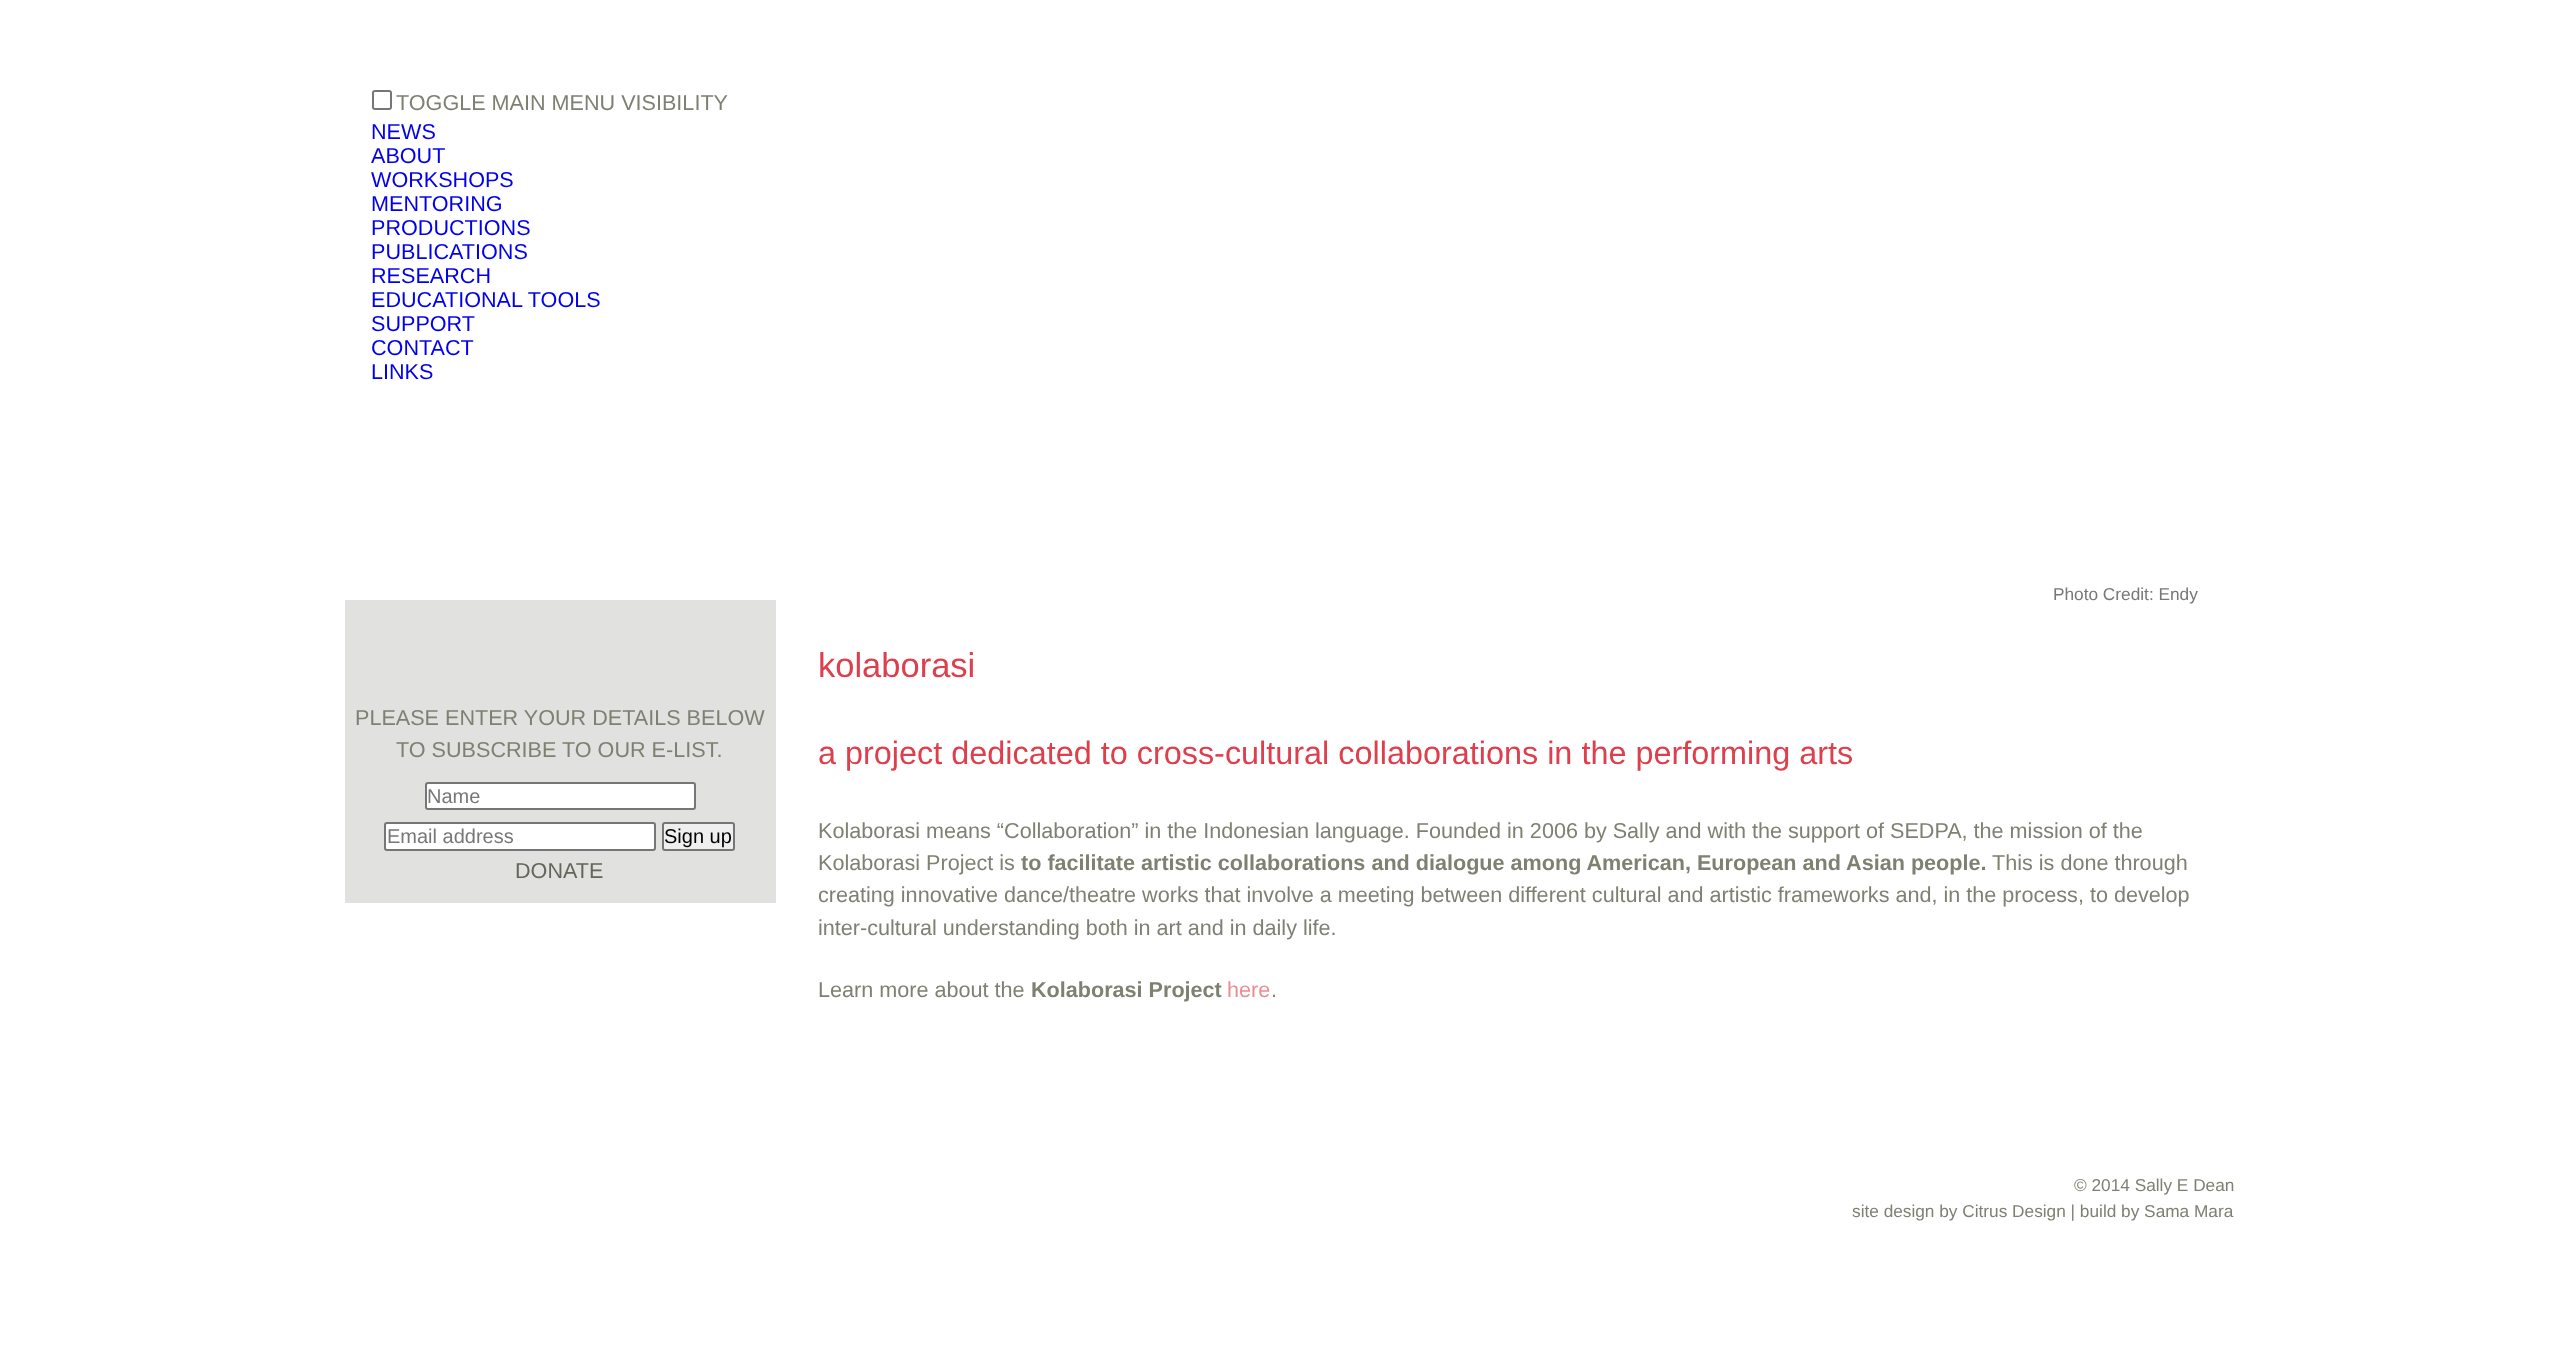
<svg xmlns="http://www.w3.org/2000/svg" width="2554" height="1356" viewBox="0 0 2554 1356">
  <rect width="100%" height="100%" fill="rgb(255,255,255)"/>
  <rect x="373" y="91" width="18" height="18" rx="2" fill="none" stroke="rgb(118,118,118)" stroke-width="2"/>
  <text x="396" y="110" font-family="Liberation Sans" font-size="21.6" fill="rgb(126,129,114)">TOGGLE MAIN MENU VISIBILITY</text>
  <g font-family="Liberation Sans" font-size="21.6" fill="rgb(0,0,238)">
    <text>
      <tspan x="371" y="139">NEWS</tspan>
      <tspan x="371" y="163">ABOUT</tspan>
      <tspan x="371" y="187">WORKSHOPS</tspan>
      <tspan x="371" y="211">MENTORING</tspan>
      <tspan x="371" y="235">PRODUCTIONS</tspan>
      <tspan x="371" y="259">PUBLICATIONS</tspan>
      <tspan x="371" y="283">RESEARCH</tspan>
      <tspan x="371" y="307">EDUCATIONAL TOOLS</tspan>
      <tspan x="371" y="331">SUPPORT</tspan>
      <tspan x="371" y="355">CONTACT</tspan>
      <tspan x="371" y="379">LINKS</tspan>
    </text>
  </g>
  <rect x="345" y="600" width="431" height="303" fill="rgb(225,225,223)"/>
  <g font-family="Liberation Sans" font-size="21.6" fill="rgb(126,129,114)">
    <text x="355" y="725">PLEASE ENTER YOUR DETAILS BELOW</text>
    <text x="396" y="757">TO SUBSCRIBE TO OUR E-LIST.</text>
  </g>
  <rect x="426" y="783" width="269" height="26" rx="2" fill="rgb(255,255,255)" stroke="rgb(118,118,118)" stroke-width="2"/>
  <text x="427" y="803" font-family="Liberation Sans" font-size="20" fill="rgb(119,119,119)">Name</text>
  <rect x="385" y="823" width="270" height="27" rx="2" fill="rgb(255,255,255)" stroke="rgb(118,118,118)" stroke-width="2"/>
  <text x="387" y="843" font-family="Liberation Sans" font-size="20" fill="rgb(119,119,119)">Email address</text>
  <rect x="663" y="823" width="71" height="27" rx="2" fill="rgb(239,239,239)" stroke="rgb(118,118,118)" stroke-width="2"/>
  <text x="664" y="843" font-family="Liberation Sans" font-size="20" fill="rgb(0,0,0)">Sign up</text>
  <text x="515" y="878" font-family="Liberation Sans" font-size="21.6" fill="rgb(100,102,90)">DONATE</text>
  <text x="2053" y="600" font-family="Liberation Sans" font-size="17.25" fill="rgb(119,119,119)">Photo Credit: Endy</text>
  <text x="818" y="677" font-family="Liberation Sans" font-size="34.5" fill="rgb(221,63,76)">kolaborasi</text>
  <text x="818" y="764" font-family="Liberation Sans" font-size="32.4" fill="rgb(221,63,76)">a project dedicated to cross-cultural collaborations in the performing arts</text>
  <g font-family="Liberation Sans" font-size="21.6" fill="rgb(126,129,114)">
    <text>
      <tspan x="818" y="838">Kolaborasi means “Collaboration” in the Indonesian language. Founded in 2006 by Sally and with the support of SEDPA, the mission of the</tspan>
      <tspan x="818" y="870">Kolaborasi Project is</tspan>
    </text>
  </g>
  <text x="1021" y="870" font-family="Liberation Sans" font-size="21.6" font-weight="bold" fill="rgb(126,129,114)">to facilitate artistic collaborations and dialogue among American, European and Asian people.</text>
  <g font-family="Liberation Sans" font-size="21.6" fill="rgb(126,129,114)">
    <text x="1992" y="870">This is done through</text>
    <text>
      <tspan x="818" y="902">creating innovative dance/theatre works that involve a meeting between different cultural and artistic frameworks and, in the process, to develop</tspan>
      <tspan x="818" y="935">inter-cultural understanding both in art and in daily life.</tspan>
    </text>
    <text x="818" y="997">Learn more about the</text>
  </g>
  <text x="1031" y="997" font-family="Liberation Sans" font-size="21.6" font-weight="bold" fill="rgb(126,129,114)">Kolaborasi Project</text>
  <text x="1227" y="997" font-family="Liberation Sans" font-size="21.6" fill="rgb(235,140,148)">here</text>
  <text x="1271" y="997" font-family="Liberation Sans" font-size="21.6" fill="rgb(126,129,114)">.</text>
  <g font-family="Liberation Sans" font-size="17.25" fill="rgb(126,129,114)">
    <text x="2074" y="1191">© 2014 Sally E Dean</text>
    <text x="1852" y="1217">site design by Citrus Design | build by Sama Mara</text>
  </g>
</svg>
